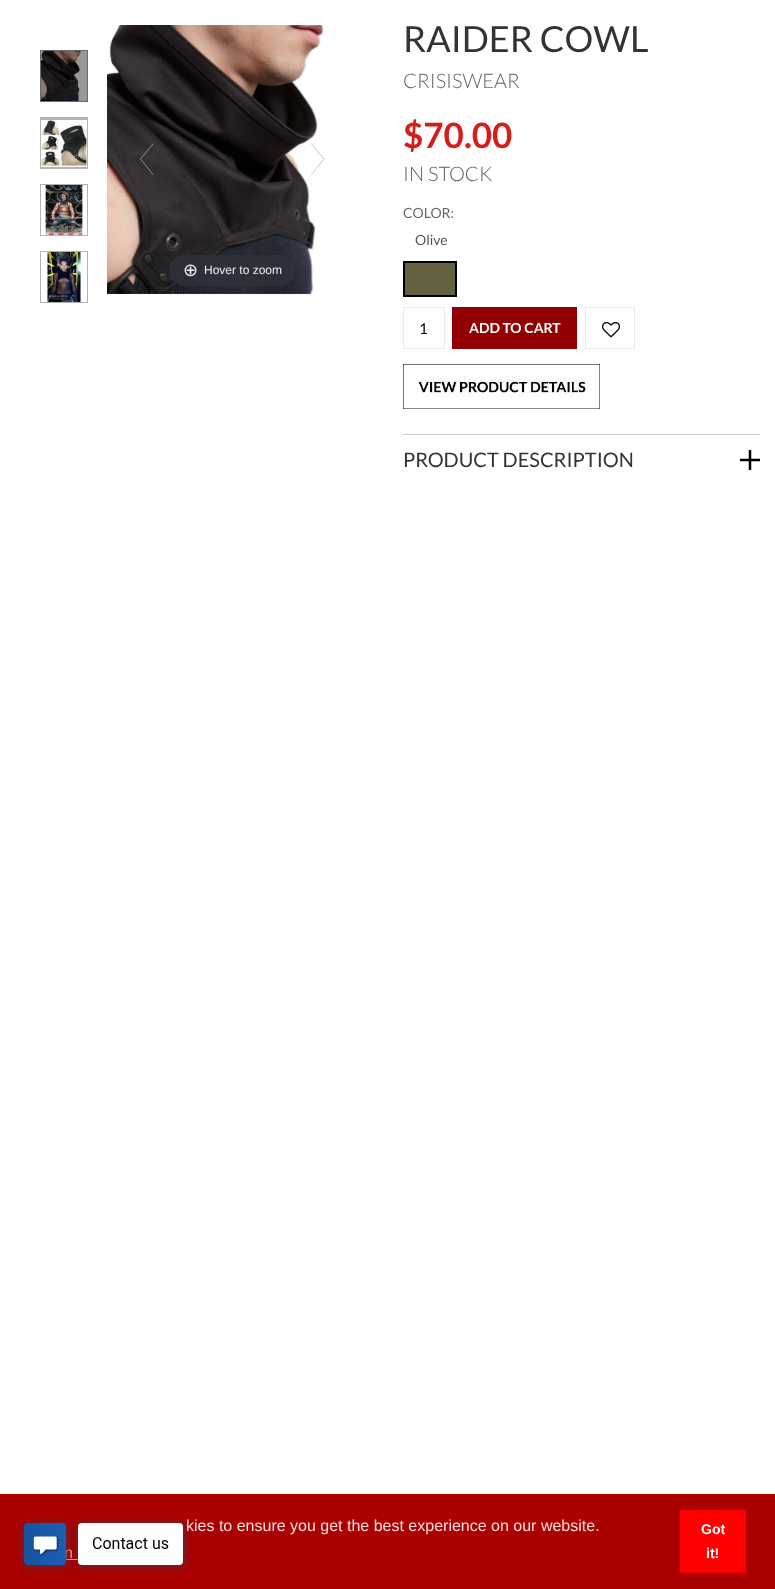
<svg xmlns="http://www.w3.org/2000/svg" width="775" height="1589" viewBox="0 0 775 1589">
  <rect width="100%" height="100%" fill="rgb(255,255,255)"/>
  <rect x="40" y="50" width="48" height="52" fill="rgba(0,0,0,0.3)" filter="blur(0.5px)"/>
  <rect x="40.5" y="50.5" width="47" height="51" fill="none" stroke="rgb(107,107,107)"/>
  <image x="41" y="51" width="46" height="50" href="pic1.png"/>
  <rect x="40" y="117" width="48" height="52" fill="rgba(0,0,0,0.3)" filter="blur(0.5px)"/>
  <rect x="40.5" y="117.5" width="47" height="51" fill="none" stroke="rgb(179,179,179)"/>
  <image x="41" y="120" width="46" height="47" href="pic2.png"/>
  <rect x="40.5" y="184.5" width="47" height="51" fill="none" stroke="rgb(179,179,179)"/>
  <image x="44" y="185" width="40" height="50" href="pic3.png"/>
  <rect x="40.5" y="251.5" width="47" height="51" fill="none" stroke="rgb(179,179,179)"/>
  <image x="46" y="252" width="36" height="50" href="pic4.png"/>
  <image x="107" y="25" width="217" height="269" href="pic5.png"/>
  <path d="M140 159L153 143.5L153.5 144L141 159L153.5 174.5L153 175Z" fill="rgba(180,180,180,0.75)"/>
  <path d="M324.5 159L311.5 175L311 174.5L323.5 159L311 144L311.5 143.5Z" fill="rgb(199,199,199)"/>
  <rect x="169" y="255" width="126" height="31" rx="15.5" fill="rgba(49,51,61,0.7)"/>
  <text x="183" y="276" font-family="DejaVu Sans" font-size="18" fill="rgb(238,238,238)">⊕</text>
  <text x="204" y="274" font-family="Liberation Sans" font-size="12" fill="rgb(238,238,238)">Hover to zoom</text>
  <text x="403" y="52" font-family="Lato" font-size="36" fill="rgb(51,51,51)">RAIDER COWL</text>
  <text x="403" y="88" font-family="Lato" font-size="20" font-weight="300" fill="rgb(95,95,95)">CRISISWEAR</text>
  <text x="403" y="148" font-family="Lato" font-size="35" font-weight="bold" fill="rgb(213,30,26)">$70.00</text>
  <text x="403" y="181" font-family="Lato" font-size="20" font-weight="300" fill="rgb(95,95,95)">IN STOCK</text>
  <text x="403" y="218" font-family="Lato" font-size="14" fill="rgb(102,102,102)">COLOR:</text>
  <text x="415" y="245" font-family="Lato" font-size="14" fill="rgb(85,85,85)">Olive</text>
  <rect x="404" y="262" width="52" height="34" fill="none" stroke="rgb(0,0,0)" stroke-width="2"/>
  <rect x="405" y="263" width="50" height="32" fill="rgb(100,97,62)"/>
  <rect x="403.5" y="307.5" width="41" height="41" fill="none" stroke="rgb(235,235,235)"/>
  <text x="419" y="334" font-family="Lato" font-size="15" fill="rgb(0,0,0)">1</text>
  <rect x="452" y="307" width="125" height="42" fill="rgb(146,0,1)"/>
  <text x="469" y="333" font-family="Lato" font-size="14" font-weight="bold" fill="rgb(255,255,255)">ADD TO CART</text>
  <rect x="585.5" y="307.5" width="49" height="41" fill="none" stroke="rgb(235,235,235)"/>
  <image x="602" y="322" width="18" height="16" href="pic6.png"/>
  <image x="403" y="364" width="197" height="45" href="pic7.png"/>
  <rect x="403" y="434" width="357" height="1" fill="rgb(197,202,207)"/>
  <text x="403" y="467" font-family="Lato" font-size="20" fill="rgb(51,51,51)">PRODUCT DESCRIPTION</text>
  <image x="740" y="450" width="20" height="20" href="pic8.png"/>
  <rect x="0" y="1494" width="775" height="95" fill="rgb(170,0,0)"/>
  <text x="186" y="1531" font-family="Liberation Sans" font-size="16" fill="rgb(255,221,221)">kies to ensure you get the best experience on our website.</text>
  <text x="64" y="1558" font-family="Liberation Sans" font-size="16" fill="rgb(238,177,177)">n</text>
  <rect x="66" y="1559" width="12" height="1" fill="rgb(238,177,177)"/>
  <image x="18" y="1517" width="174" height="56" href="pic9.png"/>
  <rect x="680" y="1510" width="66" height="63" fill="rgb(255,0,0)"/>
  <g font-family="Liberation Sans" font-size="14" font-weight="bold" fill="rgb(255,255,255)">
    <text x="701" y="1534">Got</text>
    <text x="706" y="1558">it!</text>
  </g>
</svg>
